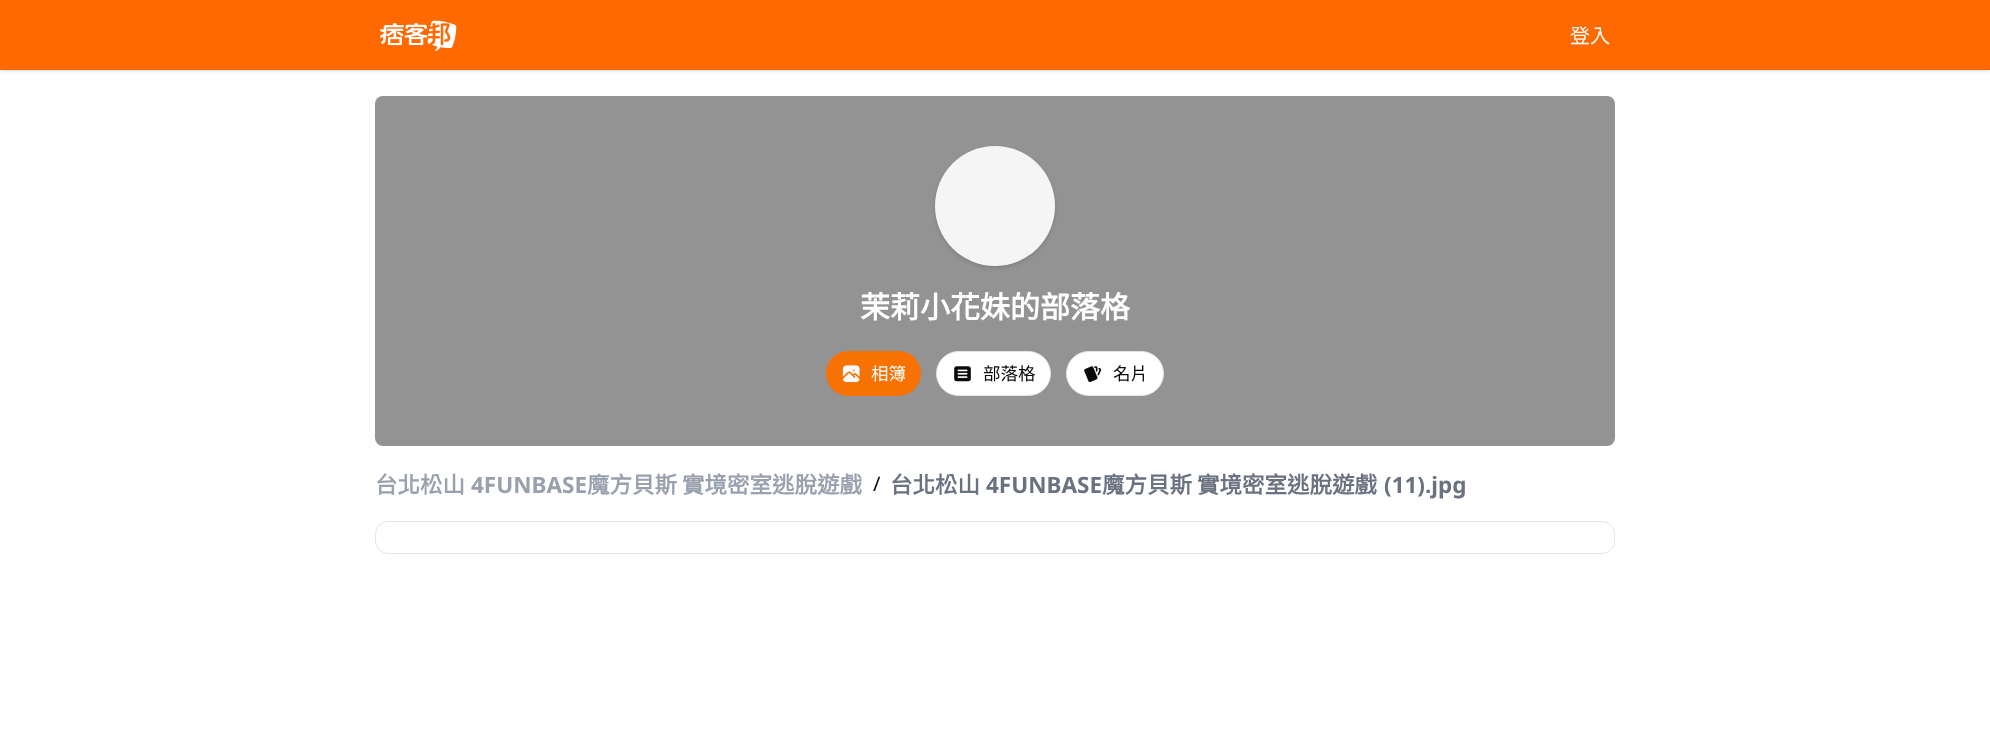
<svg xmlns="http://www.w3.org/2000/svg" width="1990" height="730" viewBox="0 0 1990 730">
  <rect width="100%" height="100%" fill="rgb(255,255,255)"/>
  <rect x="1" y="3" width="1988" height="67" fill="rgba(0,0,0,0.1)" filter="blur(1px)"/>
  <rect x="0" y="1" width="1990" height="70" fill="rgba(0,0,0,0.1)" filter="blur(2px)"/>
  <rect x="0" y="0" width="1990" height="70" fill="rgb(255,105,0)"/>
  <image x="380" y="20" width="77" height="31" href="pic1.png"/>
  <text x="1570" y="43" font-family="Noto Sans CJK TC" font-size="20" fill="rgb(255,255,255)">登入</text>
  <rect x="375" y="96" width="1240" height="350" rx="8" fill="rgb(245,245,245)"/>
  <rect x="375" y="96" width="1240" height="350" rx="8" fill="rgba(0,0,0,0.4)"/>
  <rect x="936" y="149" width="118" height="117" rx="58.5" fill="rgba(0,0,0,0.1)" filter="blur(1px)"/>
  <rect x="935" y="148" width="120" height="120" rx="60" fill="rgba(0,0,0,0.1)" filter="blur(2px)"/>
  <circle cx="995" cy="206" r="60" fill="rgb(245,245,245)"/>
  <text x="860" y="318" font-family="Noto Sans CJK TC" font-size="30" font-weight="bold" fill="rgb(255,255,255)">茉莉小花妹的部落格</text>
  <rect x="826" y="351" width="95" height="45" rx="22.5" fill="rgb(248,113,3)"/>
  <image x="842" y="365" width="18" height="18" href="pic2.png"/>
  <text x="871" y="380" font-family="Noto Sans CJK TC" font-size="17.5" fill="rgb(255,255,255)">相簿</text>
  <rect x="936.5" y="351.5" width="114" height="44" rx="22" fill="rgb(255,255,255)" stroke="rgb(229,229,229)"/>
  <image x="954" y="366" width="17" height="16" href="pic3.png"/>
  <text x="983" y="380" font-family="Noto Sans CJK TC" font-size="17.5" fill="rgb(10,10,10)">部落格</text>
  <rect x="1066.5" y="351.5" width="97" height="44" rx="22" fill="rgb(255,255,255)" stroke="rgb(229,229,229)"/>
  <image x="1084" y="366" width="18" height="17" href="pic4.png"/>
  <text x="1113" y="380" font-family="Noto Sans CJK TC" font-size="17.5" fill="rgb(10,10,10)">名片</text>
  <text x="375" y="493" font-family="Noto Sans CJK TC" font-size="22.5" font-weight="bold" fill="rgb(153,161,175)">台北松山</text>
  <text x="471" y="493" font-family="Noto Sans" font-size="22.5" font-weight="bold" fill="rgb(153,161,175)">4FUNBASE</text>
  <text x="587" y="493" font-family="Noto Sans CJK TC" font-size="22.5" font-weight="bold" fill="rgb(153,161,175)">魔方貝斯 實境密室逃脫遊戲</text>
  <text x="873" y="491" font-family="Noto Sans" font-size="20" fill="rgb(10,10,10)">/</text>
  <text x="890" y="493" font-family="Noto Sans CJK TC" font-size="22.5" font-weight="bold" fill="rgb(106,114,130)">台北松山</text>
  <text x="986" y="493" font-family="Noto Sans" font-size="22.5" font-weight="bold" fill="rgb(106,114,130)">4FUNBASE</text>
  <text x="1102" y="493" font-family="Noto Sans CJK TC" font-size="22.5" font-weight="bold" fill="rgb(106,114,130)">魔方貝斯 實境密室逃脫遊戲</text>
  <text x="1384" y="493" font-family="Noto Sans" font-size="22.5" font-weight="bold" fill="rgb(106,114,130)">(11).jpg</text>
  <rect x="375.5" y="521.5" width="1239" height="32" rx="12.5" fill="none" stroke="rgb(229,229,229)"/>
</svg>
